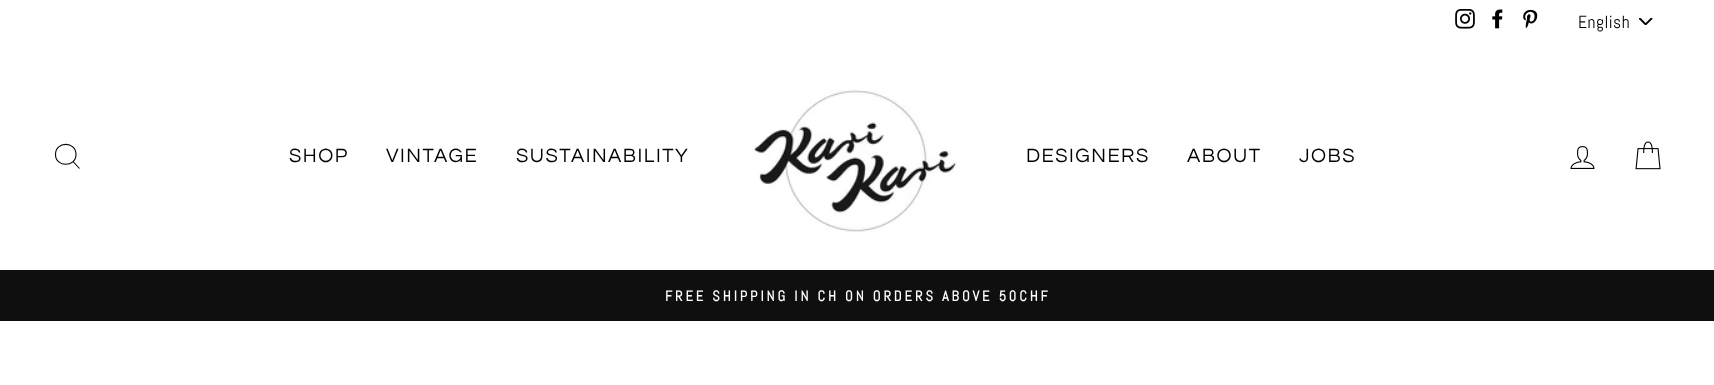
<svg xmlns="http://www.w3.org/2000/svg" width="1714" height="385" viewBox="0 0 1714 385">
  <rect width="100%" height="100%" fill="rgb(255,255,255)"/>
  <image x="1455" y="9" width="20" height="20" href="pic1.png"/>
  <image x="1492" y="9" width="11" height="20" href="pic2.png"/>
  <image x="1523" y="9" width="15" height="20" href="pic3.png"/>
  <image x="1639" y="18" width="14" height="7" href="pic4.png"/>
  <text x="1578" y="28" font-family="Abel" font-size="17.5" letter-spacing="0.5" fill="rgb(0,0,0)">English</text>
  <path d="M76 154.5C76 167.5 55.5 167.5 55.5 154.5C55.5 141 76 141 76 154.5ZM79.5 168.5L73 161.5" fill="none" stroke="rgb(0,0,0)" stroke-width="1.1"/>
  <g font-family="Questrial" font-size="20" letter-spacing="1.5" fill="rgb(0,0,0)">
    <text x="289" y="162">SHOP</text>
    <text x="386" y="162">VINTAGE</text>
    <text x="516" y="162">SUSTAINABILITY</text>
  </g>
  <image x="753" y="90" width="204" height="142" href="pic5.png"/>
  <g font-family="Questrial" font-size="20" letter-spacing="1.5" fill="rgb(0,0,0)">
    <text x="1026" y="162">DESIGNERS</text>
    <text x="1187" y="162">ABOUT</text>
    <text x="1299" y="162">JOBS</text>
  </g>
  <image x="1570" y="146" width="25" height="23" href="pic6.png"/>
  <image x="1635" y="141" width="26" height="29" href="pic7.png"/>
  <rect x="0" y="270" width="1714" height="51" fill="rgb(15,15,15)"/>
  <text x="665" y="301" font-family="Abel" font-size="14.45" font-weight="bold" letter-spacing="2.9" fill="rgb(255,255,255)">FREE SHIPPING IN CH ON ORDERS ABOVE 50CHF</text>
</svg>
